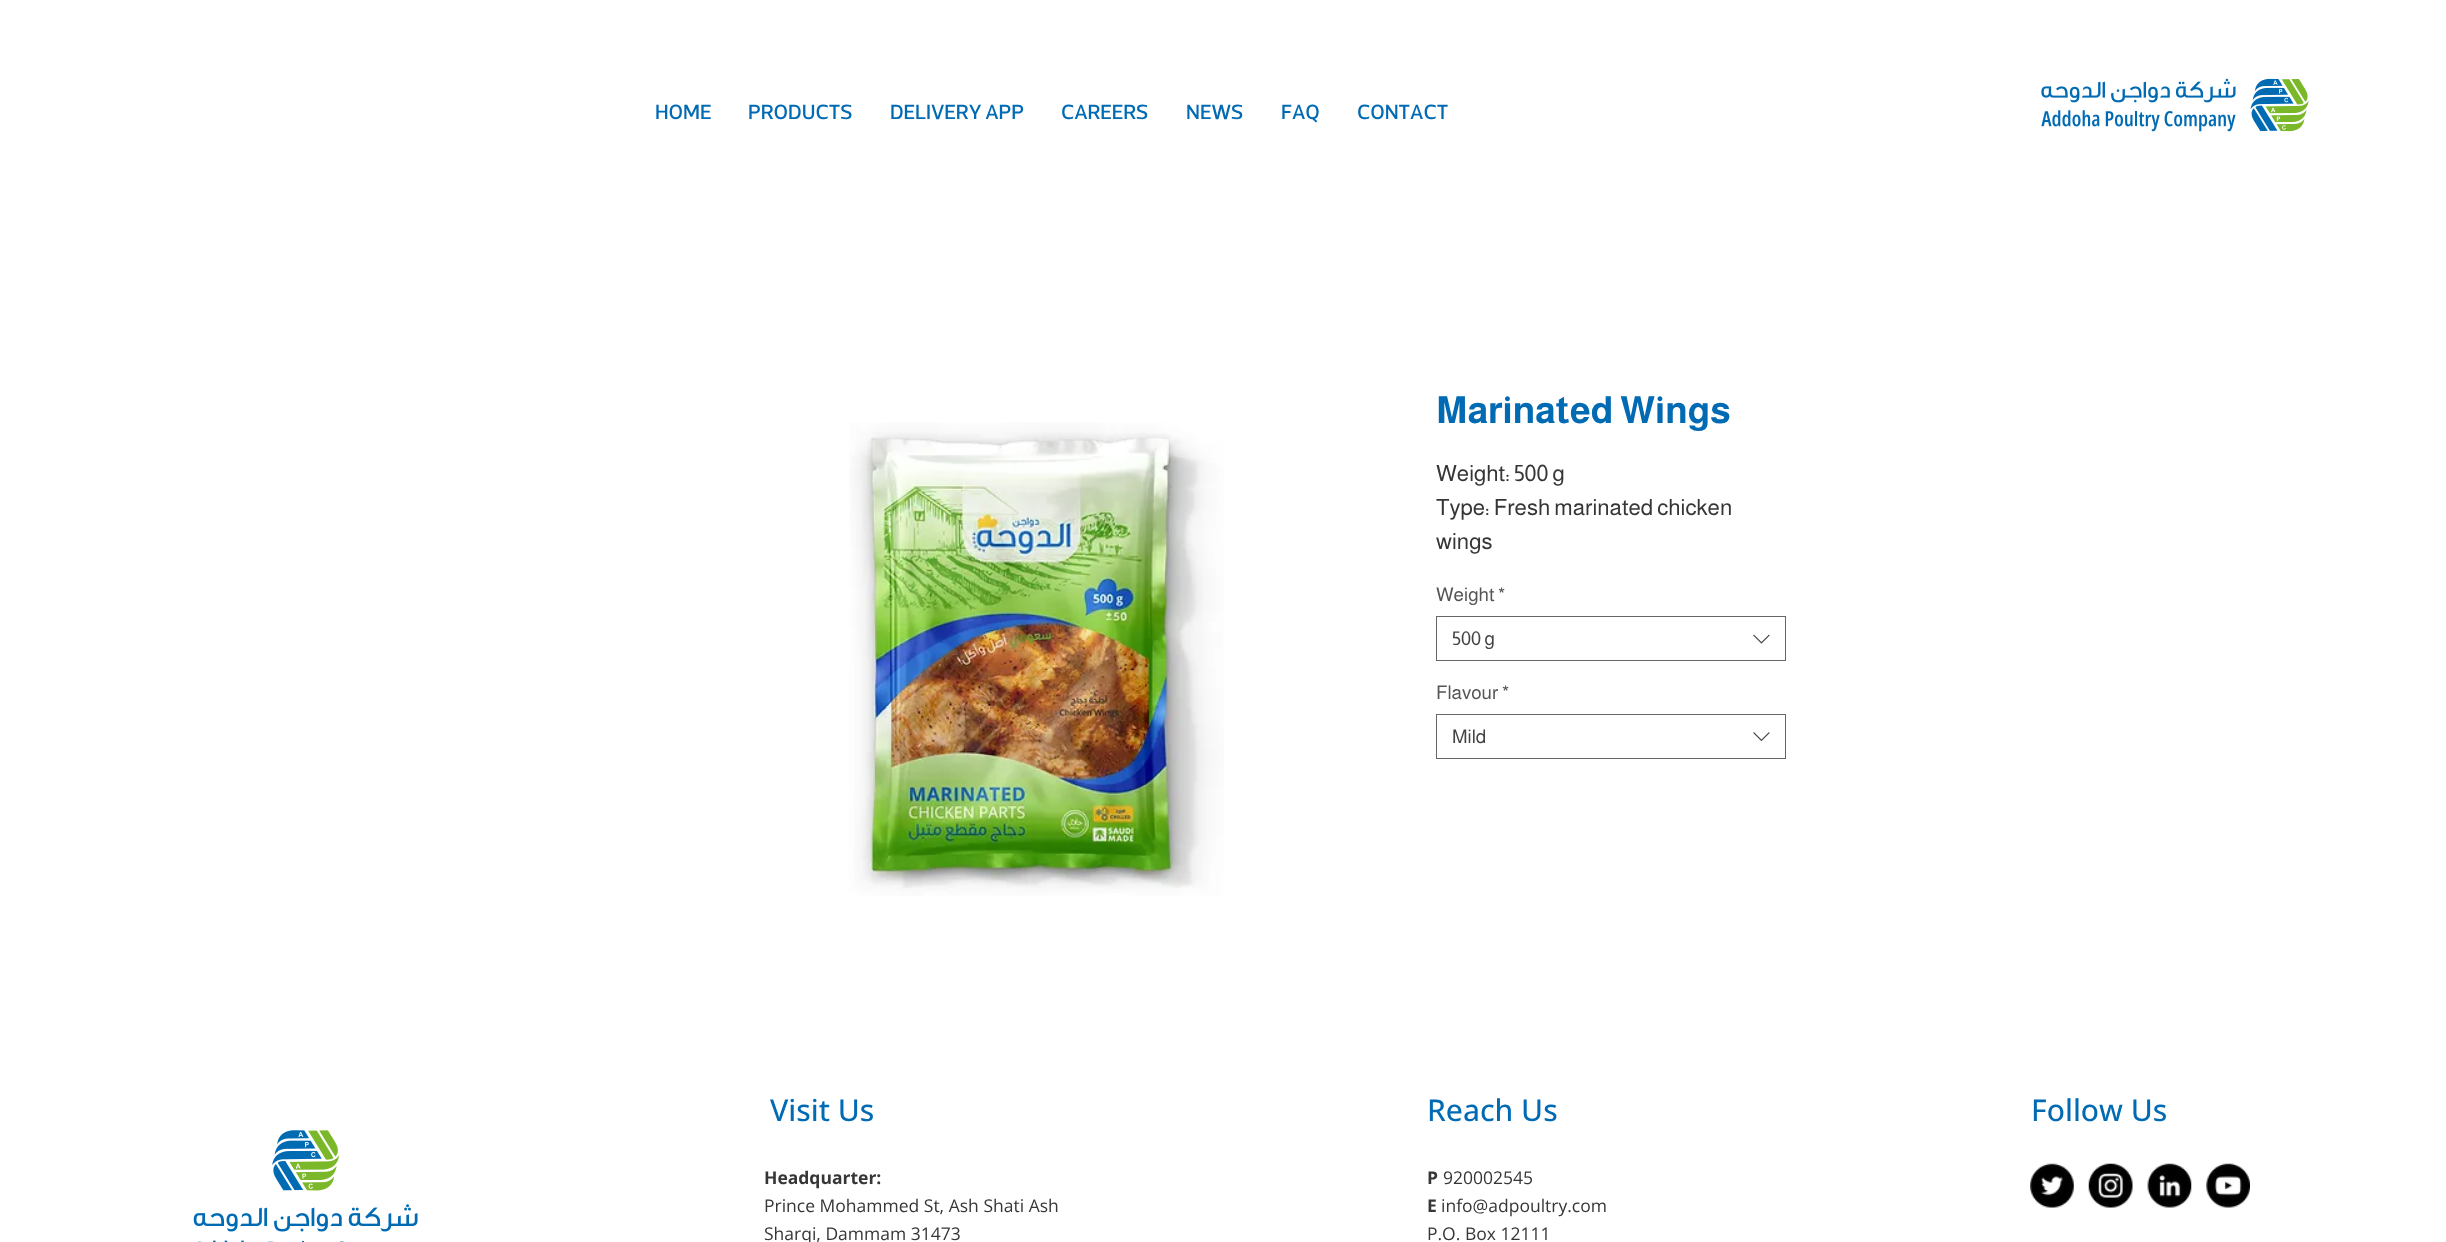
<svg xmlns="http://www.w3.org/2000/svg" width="2446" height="1242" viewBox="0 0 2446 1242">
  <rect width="100%" height="100%" fill="rgb(255,255,255)"/>
  <g font-family="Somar" font-size="31.25" font-weight="500" fill="rgb(0,106,179)">
    <text x="655" y="119">HOME</text>
    <text x="748" y="119">PRODUCTS</text>
    <text x="890" y="119">DELIVERY APP</text>
    <text x="1061" y="119">CAREERS</text>
    <text x="1186" y="119">NEWS</text>
    <text x="1281" y="119">FAQ</text>
    <text x="1357" y="119">CONTACT</text>
  </g>
  <image x="2041" y="78" width="268" height="54" href="pic1.png"/>
  <image x="849" y="422" width="375" height="474" href="pic2.png"/>
  <text x="1436" y="423" font-family="Almarai" font-size="37.5" font-weight="bold" fill="rgb(0,106,179)">Marinated Wings</text>
  <g font-family="Almarai" font-size="22.5" fill="rgb(54,54,56)">
    <text>
      <tspan x="1436" y="481">Weight: 500 g</tspan>
      <tspan x="1436" y="515">Type: Fresh marinated chicken</tspan>
      <tspan x="1436" y="549">wings</tspan>
    </text>
  </g>
  <g font-family="Almarai" font-size="19" fill="rgb(85,85,85)">
    <text x="1436" y="601">Weight</text>
    <text x="1498" y="601">*</text>
  </g>
  <rect x="1436.5" y="616.5" width="349" height="44" fill="none" stroke="rgb(102,102,102)"/>
  <text x="1452" y="645" font-family="Almarai" font-size="19" fill="rgb(68,68,68)">500 g</text>
  <image x="1753" y="634" width="17" height="10" href="pic3.png"/>
  <g font-family="Almarai" font-size="19" fill="rgb(85,85,85)">
    <text x="1436" y="699">Flavour</text>
    <text x="1502" y="699">*</text>
  </g>
  <rect x="1436.5" y="714.5" width="349" height="44" fill="none" stroke="rgb(102,102,102)"/>
  <text x="1452" y="743" font-family="Almarai" font-size="19" fill="rgb(68,68,68)">Mild</text>
  <image x="1753" y="732" width="17" height="10" href="pic4.png"/>
  <text x="770" y="1121" font-family="Open Sans" font-size="30" font-weight="500" fill="rgb(0,106,179)">Visit Us</text>
  <text x="764" y="1184" font-family="Open Sans" font-size="17.5" font-weight="bold" fill="rgb(54,54,56)">Headquarter:</text>
  <g font-family="Open Sans" font-size="17.5" fill="rgb(54,54,56)">
    <text>
      <tspan x="764" y="1212">Prince Mohammed St, Ash Shati Ash</tspan>
      <tspan x="764" y="1240">Sharqi, Dammam 31473</tspan>
    </text>
  </g>
  <text x="1427" y="1121" font-family="Open Sans" font-size="30" font-weight="500" fill="rgb(0,106,179)">Reach Us</text>
  <text x="1427" y="1184" font-family="Open Sans" font-size="17.5" font-weight="bold" fill="rgb(54,54,56)">P</text>
  <text x="1443" y="1184" font-family="Open Sans" font-size="17.5" fill="rgb(54,54,56)">920002545</text>
  <text x="1427" y="1212" font-family="Open Sans" font-size="17.5" font-weight="bold" fill="rgb(54,54,56)">E</text>
  <g font-family="Open Sans" font-size="17.5" fill="rgb(54,54,56)">
    <text x="1441" y="1212">info@adpoultry.com</text>
    <text x="1427" y="1240">P.O. Box 12111</text>
  </g>
  <text x="2031" y="1121" font-family="Open Sans" font-size="30" font-weight="500" fill="rgb(0,106,179)">Follow Us</text>
  <image x="2030" y="1163" width="44" height="45" href="pic5.png"/>
  <image x="2088" y="1163" width="45" height="45" href="pic6.png"/>
  <image x="2147" y="1163" width="45" height="45" href="pic7.png"/>
  <image x="2206" y="1163" width="44" height="45" href="pic8.png"/>
  <image x="193" y="1130" width="225" height="112" href="pic9.png"/>
</svg>
